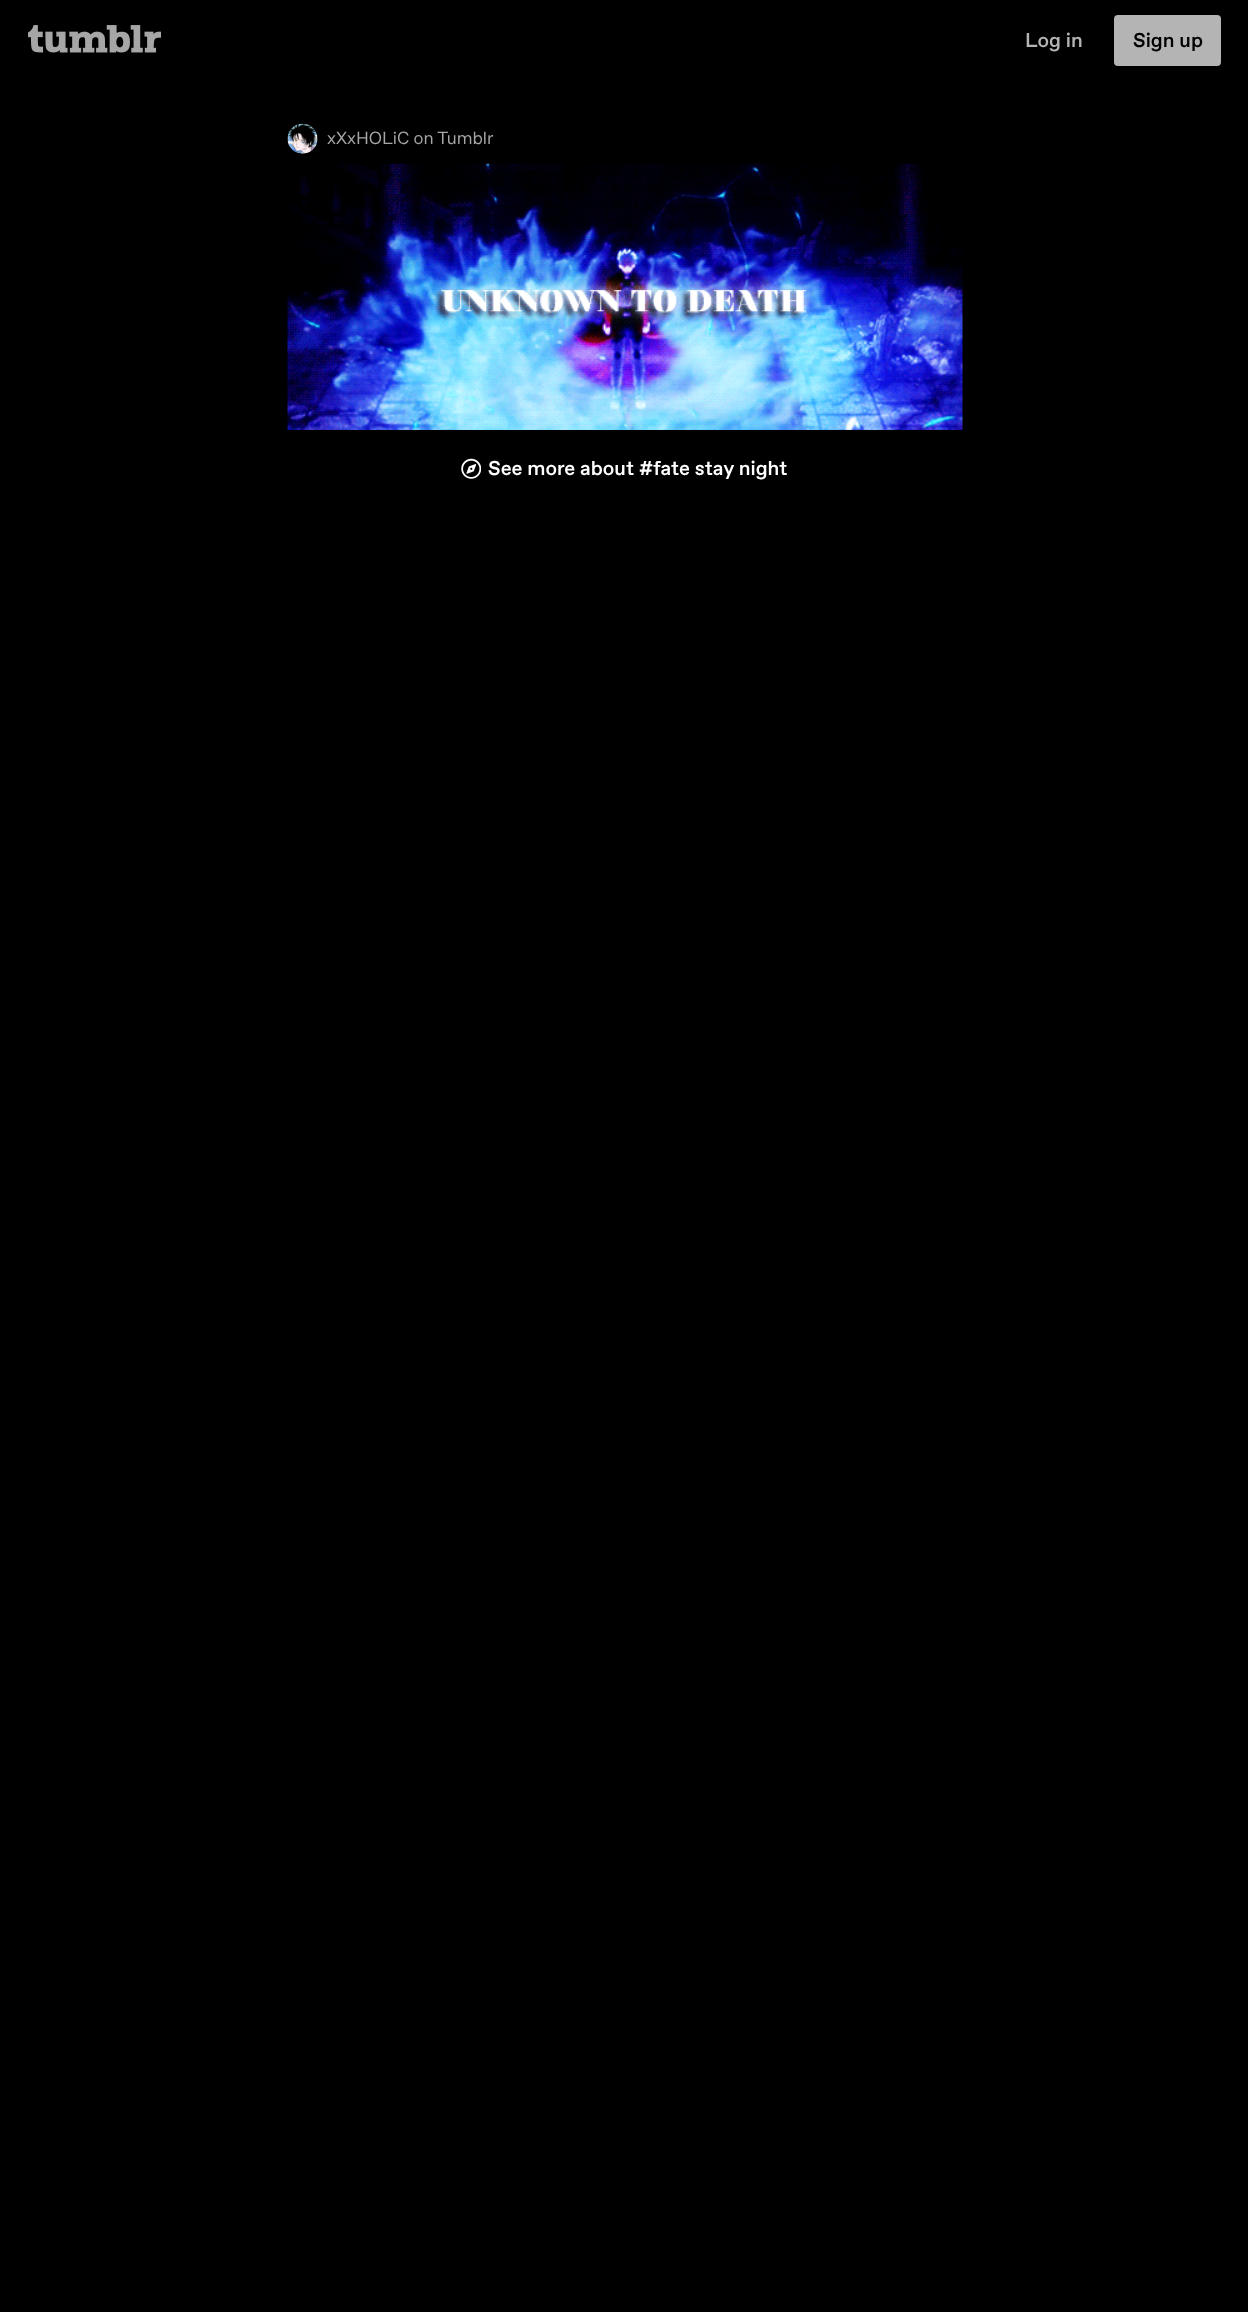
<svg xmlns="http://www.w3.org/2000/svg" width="1248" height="2312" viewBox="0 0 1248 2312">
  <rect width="100%" height="100%" fill="rgb(0,0,0)"/>
  <image x="28" y="25" width="133" height="28" href="pic1.png"/>
  <text x="1025" y="47" font-family="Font" font-size="20" font-weight="500" fill="rgb(180,180,180)">Log in</text>
  <rect x="1114" y="15" width="107" height="51" rx="4" fill="rgb(180,180,180)"/>
  <text x="1133" y="47" font-family="Font" font-size="20" font-weight="500" fill="rgb(0,0,0)">Sign up</text>
  <image x="287" y="123" width="31" height="31" href="pic2.png"/>
  <text x="327" y="144" font-family="Font" font-size="17.5" font-weight="300" fill="rgb(166,166,166)">xXxHOLiC on Tumblr</text>
  <image x="287" y="163" width="676" height="267" href="pic3.png"/>
  <image x="461" y="458" width="20" height="21" href="pic4.png"/>
  <text x="488" y="475" font-family="Font" font-size="20" font-weight="500" fill="rgb(255,255,255)">See more about #fate stay night</text>
</svg>
